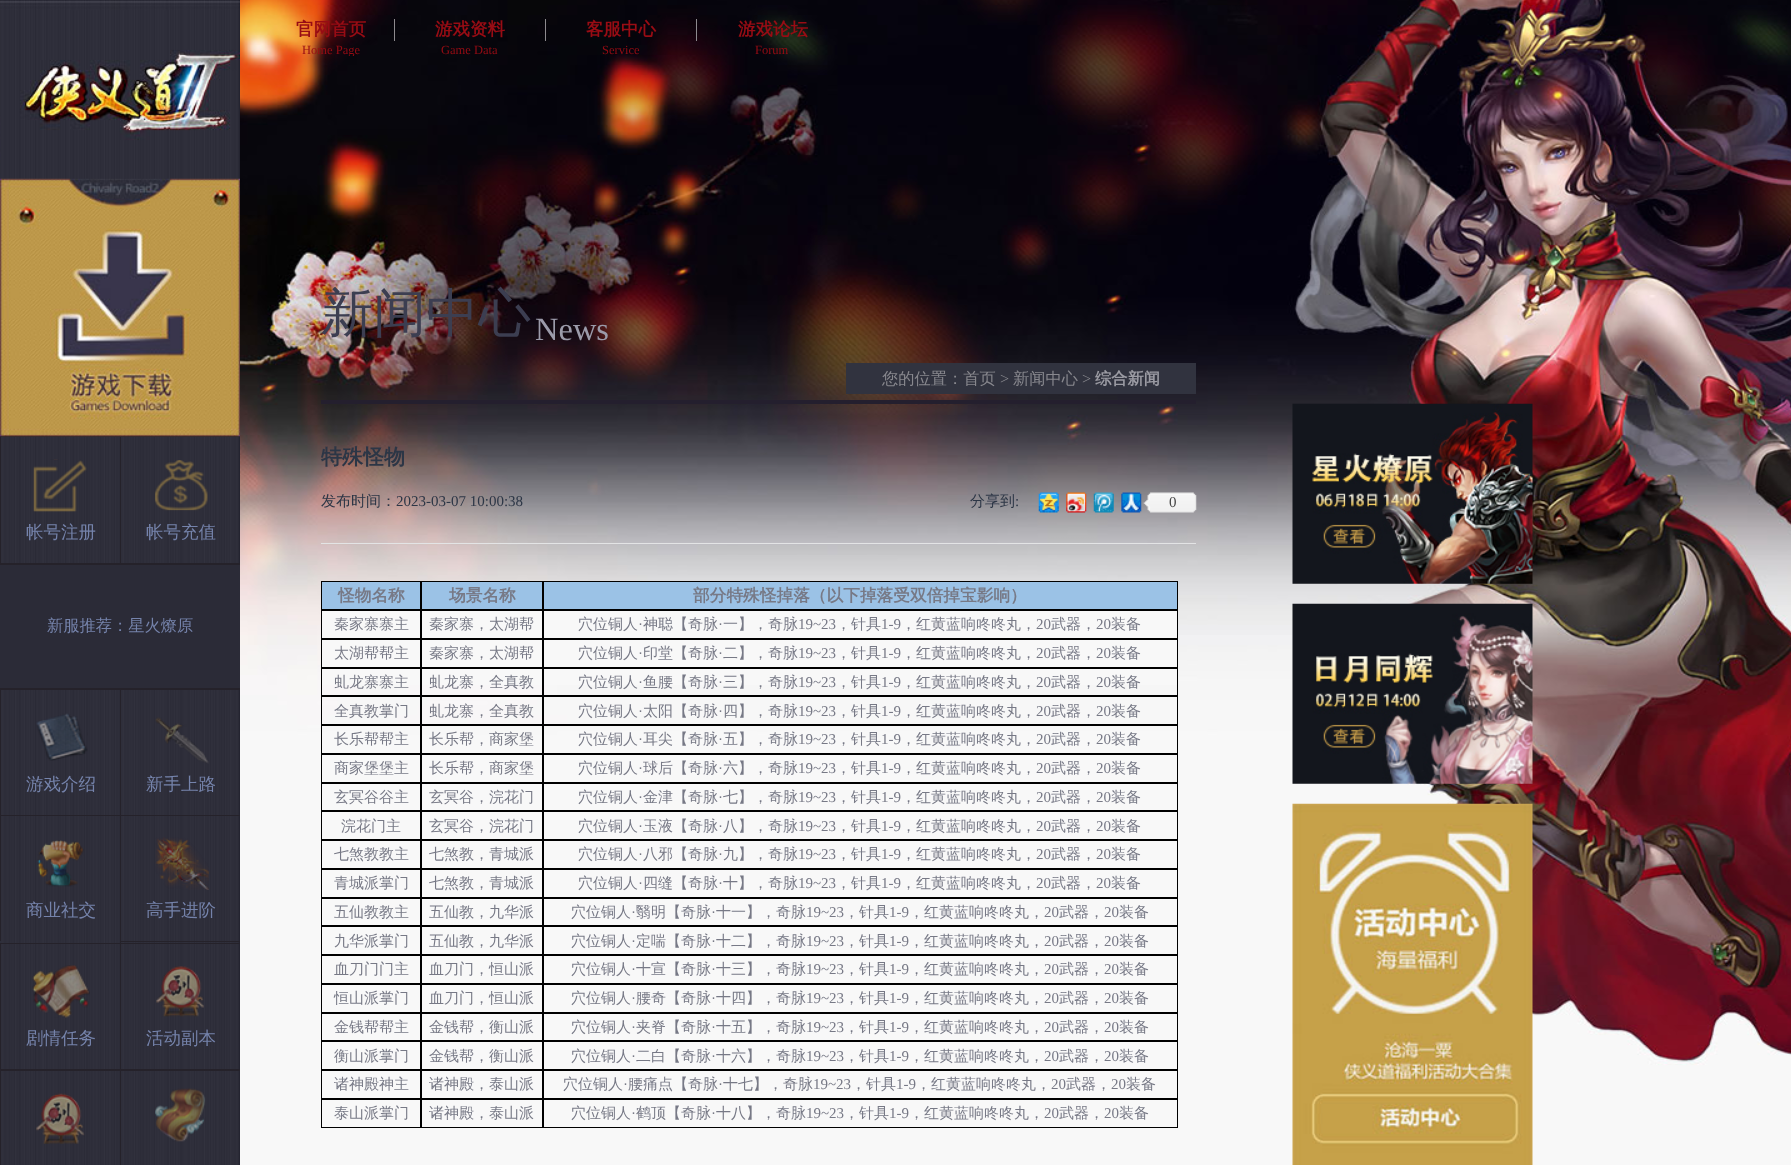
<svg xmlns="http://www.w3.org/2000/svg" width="1791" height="1165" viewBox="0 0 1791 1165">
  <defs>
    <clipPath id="clip1"><rect x="240" y="0" width="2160" height="56"/></clipPath>
  </defs>
  <rect width="100%" height="100%" fill="rgb(255,255,255)"/>
  <image x="240" y="0" width="1551" height="1165" href="pic1.png"/>
  <image x="0" y="0" width="240" height="1165" href="pic2.png"/>
  <rect x="0" y="436" width="240" height="1" fill="rgb(37,34,42)"/>
  <rect x="0" y="436" width="1" height="127" fill="rgb(37,34,42)"/>
  <rect x="120" y="436" width="1" height="127" fill="rgb(37,34,42)"/>
  <image x="0" y="178" width="240" height="259" href="pic3.png"/>
  <rect x="0" y="563" width="240" height="2" fill="rgb(37,34,42)"/>
  <image x="33" y="459" width="54" height="53" href="pic4.png"/>
  <text x="26" y="538" font-family="WenQuanYi Zen Hei" font-size="17.5" font-weight="500" fill="rgb(117,131,171)">帐号注册</text>
  <image x="154" y="460" width="54" height="51" href="pic5.png"/>
  <text x="146" y="538" font-family="WenQuanYi Zen Hei" font-size="17.5" font-weight="500" fill="rgb(117,131,171)">帐号充值</text>
  <rect x="0" y="565" width="240" height="123" fill="rgb(43,43,55)"/>
  <text x="47" y="631" font-family="WenQuanYi Zen Hei" font-size="16.25" font-weight="500" fill="rgb(117,131,171)">新服推荐：星火燎原</text>
  <rect x="0" y="1069" width="240" height="1" fill="rgb(37,34,42)"/>
  <rect x="0" y="688" width="240" height="2" fill="rgb(37,34,42)"/>
  <rect x="0" y="689" width="1" height="126" fill="rgb(37,34,42)"/>
  <image x="36" y="713" width="52" height="48" href="pic6.png"/>
  <text x="26" y="790" font-family="WenQuanYi Zen Hei" font-size="17.5" font-weight="500" fill="rgb(117,131,171)">游戏介绍</text>
  <rect x="120" y="689" width="1" height="126" fill="rgb(37,34,42)"/>
  <image x="155" y="717" width="54" height="47" href="pic7.png"/>
  <text x="146" y="790" font-family="WenQuanYi Zen Hei" font-size="17.5" font-weight="500" fill="rgb(117,131,171)">新手上路</text>
  <rect x="0" y="815" width="240" height="1" fill="rgb(37,34,42)"/>
  <rect x="0" y="815" width="1" height="126" fill="rgb(37,34,42)"/>
  <image x="37" y="840" width="47" height="47" href="pic8.png"/>
  <text x="26" y="916" font-family="WenQuanYi Zen Hei" font-size="17.5" font-weight="500" fill="rgb(117,131,171)">商业社交</text>
  <rect x="120" y="941" width="120" height="1" fill="rgb(37,34,42)"/>
  <rect x="120" y="815" width="1" height="128" fill="rgb(37,34,42)"/>
  <image x="155" y="837" width="54" height="53" href="pic9.png"/>
  <text x="146" y="916" font-family="WenQuanYi Zen Hei" font-size="17.5" font-weight="500" fill="rgb(117,131,171)">高手进阶</text>
  <rect x="0" y="943" width="240" height="1" fill="rgb(37,34,42)"/>
  <rect x="0" y="943" width="1" height="126" fill="rgb(37,34,42)"/>
  <image x="32" y="965" width="58" height="53" href="pic10.png"/>
  <text x="26" y="1044" font-family="WenQuanYi Zen Hei" font-size="17.5" font-weight="500" fill="rgb(117,131,171)">剧情任务</text>
  <rect x="120" y="943" width="1" height="126" fill="rgb(37,34,42)"/>
  <image x="156" y="966" width="48" height="51" href="pic11.png"/>
  <text x="146" y="1044" font-family="WenQuanYi Zen Hei" font-size="17.5" font-weight="500" fill="rgb(117,131,171)">活动副本</text>
  <rect x="0" y="1070" width="240" height="1" fill="rgb(37,34,42)"/>
  <rect x="0" y="1070" width="1" height="95" fill="rgb(37,34,42)"/>
  <image x="36" y="1093" width="49" height="51" href="pic12.png"/>
  <rect x="120" y="1070" width="1" height="95" fill="rgb(37,34,42)"/>
  <image x="155" y="1088" width="51" height="54" href="pic13.png"/>
  <rect x="394" y="19" width="1" height="22" fill="rgb(141,138,142)"/>
  <text x="296" y="35" font-family="WenQuanYi Zen Hei" font-size="17.5" font-weight="bold" fill="rgb(152,12,20)">官网首页</text>
  <rect x="545" y="19" width="1" height="22" fill="rgb(141,138,142)"/>
  <text x="435" y="35" font-family="WenQuanYi Zen Hei" font-size="17.5" font-weight="bold" fill="rgb(152,12,20)">游戏资料</text>
  <rect x="696" y="19" width="1" height="22" fill="rgb(141,138,142)"/>
  <g font-family="WenQuanYi Zen Hei" font-size="17.5" font-weight="bold" fill="rgb(152,12,20)">
    <text x="586" y="35">客服中心</text>
    <text x="738" y="35">游戏论坛</text>
  </g>
  <g clip-path="url(#clip1)">
    <text x="302" y="54" font-family="Liberation Serif" font-size="12.5" fill="rgb(152,12,20)">Home Page</text>
  </g>
  <g font-family="Liberation Serif" font-size="12.5" fill="rgb(152,12,20)">
    <text x="441" y="54">Game Data</text>
    <text x="602" y="54">Service</text>
    <text x="755" y="54">Forum</text>
  </g>
  <text x="321" y="331" font-family="WenQuanYi Zen Hei" font-size="52.5" font-weight="500" fill="rgb(60,62,81)">新闻中心</text>
  <text x="535" y="340" font-family="Liberation Serif" font-size="32.5" fill="rgb(155,155,170)">News</text>
  <rect x="321" y="400" width="875" height="4" fill="rgb(36,31,46)"/>
  <rect x="846" y="363" width="350" height="31" fill="rgb(49,51,63)"/>
  <text x="882" y="384" font-family="WenQuanYi Zen Hei" font-size="16.25" font-weight="500" fill="rgb(136,136,142)">您的位置：首页</text>
  <text x="1000" y="384" font-family="Liberation Serif" font-size="16.25" fill="rgb(136,136,142)">&gt;</text>
  <text x="1013" y="384" font-family="WenQuanYi Zen Hei" font-size="16.25" font-weight="500" fill="rgb(136,136,142)">新闻中心</text>
  <text x="1082" y="384" font-family="Liberation Serif" font-size="16.25" fill="rgb(136,136,142)">&gt;</text>
  <text x="1095" y="384" font-family="WenQuanYi Zen Hei" font-size="16.25" font-weight="bold" fill="rgb(155,155,163)">综合新闻</text>
  <rect x="321" y="543" width="875" height="1" fill="rgb(227,228,229)"/>
  <text x="321" y="464" font-family="WenQuanYi Zen Hei" font-size="21" font-weight="bold" fill="rgb(44,54,70)">特殊怪物</text>
  <text x="321" y="506" font-family="WenQuanYi Zen Hei" font-size="15" font-weight="500" fill="rgb(44,54,70)">发布时间：</text>
  <text x="396" y="506" font-family="Liberation Serif" font-size="15" fill="rgb(44,54,70)">2023-03-07 10:00:38</text>
  <text x="970" y="506" font-family="WenQuanYi Zen Hei" font-size="15" font-weight="500" fill="rgb(44,54,70)">分享到</text>
  <text x="1015" y="506" font-family="Liberation Serif" font-size="15" fill="rgb(44,54,70)">:</text>
  <image x="1038" y="492" width="21" height="21" href="pic14.png"/>
  <image x="1066" y="492" width="21" height="21" href="pic15.png"/>
  <image x="1093" y="492" width="21" height="21" href="pic16.png"/>
  <image x="1121" y="492" width="21" height="21" href="pic17.png"/>
  <image x="1143" y="492" width="54" height="21" href="pic18.png"/>
  <text x="1169" y="507" font-family="Liberation Serif" font-size="15" fill="rgb(69,69,69)">0</text>
  <rect x="321.5" y="581.5" width="99" height="28" fill="rgb(155,194,230)" stroke="rgb(0,0,0)"/>
  <text x="338" y="601" font-family="WenQuanYi Zen Hei" font-size="16.7" font-weight="bold" fill="rgb(119,121,134)">怪物名称</text>
  <rect x="421.5" y="581.5" width="121" height="28" fill="rgb(155,194,230)" stroke="rgb(0,0,0)"/>
  <text x="449" y="601" font-family="WenQuanYi Zen Hei" font-size="16.7" font-weight="bold" fill="rgb(119,121,134)">场景名称</text>
  <rect x="543.5" y="581.5" width="634" height="28" fill="rgb(155,194,230)" stroke="rgb(0,0,0)"/>
  <text x="693" y="601" font-family="WenQuanYi Zen Hei" font-size="16.7" font-weight="bold" fill="rgb(119,121,134)">部分特殊怪掉落（以下掉落受双倍掉宝影响）</text>
  <rect x="321.5" y="610.5" width="99" height="28" fill="rgb(248,248,248)" stroke="rgb(0,0,0)"/>
  <text x="334" y="629" font-family="WenQuanYi Zen Hei" font-size="15" font-weight="500" fill="rgb(119,121,134)">秦家寨寨主</text>
  <rect x="421.5" y="610.5" width="121" height="28" fill="rgb(248,248,248)" stroke="rgb(0,0,0)"/>
  <text x="429" y="629" font-family="WenQuanYi Zen Hei" font-size="15" font-weight="500" fill="rgb(119,121,134)">秦家寨，太湖帮</text>
  <rect x="543.5" y="610.5" width="634" height="28" fill="rgb(248,248,248)" stroke="rgb(0,0,0)"/>
  <text x="578" y="629" font-family="WenQuanYi Zen Hei" font-size="15" font-weight="500" fill="rgb(119,121,134)">穴位铜人</text>
  <text x="638" y="629" font-family="Liberation Serif" font-size="15" fill="rgb(119,121,134)">·</text>
  <text x="643" y="629" font-family="WenQuanYi Zen Hei" font-size="15" font-weight="500" fill="rgb(119,121,134)">神聪【奇脉</text>
  <text x="718" y="629" font-family="Liberation Serif" font-size="15" fill="rgb(119,121,134)">·</text>
  <text x="723" y="629" font-family="WenQuanYi Zen Hei" font-size="15" font-weight="500" fill="rgb(119,121,134)">一】，奇脉</text>
  <text x="798" y="629" font-family="Liberation Serif" font-size="15" fill="rgb(119,121,134)">19~23</text>
  <text x="836" y="629" font-family="WenQuanYi Zen Hei" font-size="15" font-weight="500" fill="rgb(119,121,134)">，针具</text>
  <text x="881" y="629" font-family="Liberation Serif" font-size="15" fill="rgb(119,121,134)">1-9</text>
  <text x="901" y="629" font-family="WenQuanYi Zen Hei" font-size="15" font-weight="500" fill="rgb(119,121,134)">，红黄蓝响咚咚丸，</text>
  <text x="1036" y="629" font-family="Liberation Serif" font-size="15" fill="rgb(119,121,134)">20</text>
  <text x="1051" y="629" font-family="WenQuanYi Zen Hei" font-size="15" font-weight="500" fill="rgb(119,121,134)">武器，</text>
  <text x="1096" y="629" font-family="Liberation Serif" font-size="15" fill="rgb(119,121,134)">20</text>
  <text x="1111" y="629" font-family="WenQuanYi Zen Hei" font-size="15" font-weight="500" fill="rgb(119,121,134)">装备</text>
  <rect x="321.5" y="639.5" width="99" height="28" fill="rgb(248,248,248)" stroke="rgb(0,0,0)"/>
  <text x="334" y="658" font-family="WenQuanYi Zen Hei" font-size="15" font-weight="500" fill="rgb(119,121,134)">太湖帮帮主</text>
  <rect x="421.5" y="639.5" width="121" height="28" fill="rgb(248,248,248)" stroke="rgb(0,0,0)"/>
  <text x="429" y="658" font-family="WenQuanYi Zen Hei" font-size="15" font-weight="500" fill="rgb(119,121,134)">秦家寨，太湖帮</text>
  <rect x="543.5" y="639.5" width="634" height="28" fill="rgb(248,248,248)" stroke="rgb(0,0,0)"/>
  <text x="578" y="658" font-family="WenQuanYi Zen Hei" font-size="15" font-weight="500" fill="rgb(119,121,134)">穴位铜人</text>
  <text x="638" y="658" font-family="Liberation Serif" font-size="15" fill="rgb(119,121,134)">·</text>
  <text x="643" y="658" font-family="WenQuanYi Zen Hei" font-size="15" font-weight="500" fill="rgb(119,121,134)">印堂【奇脉</text>
  <text x="718" y="658" font-family="Liberation Serif" font-size="15" fill="rgb(119,121,134)">·</text>
  <text x="723" y="658" font-family="WenQuanYi Zen Hei" font-size="15" font-weight="500" fill="rgb(119,121,134)">二】，奇脉</text>
  <text x="798" y="658" font-family="Liberation Serif" font-size="15" fill="rgb(119,121,134)">19~23</text>
  <text x="836" y="658" font-family="WenQuanYi Zen Hei" font-size="15" font-weight="500" fill="rgb(119,121,134)">，针具</text>
  <text x="881" y="658" font-family="Liberation Serif" font-size="15" fill="rgb(119,121,134)">1-9</text>
  <text x="901" y="658" font-family="WenQuanYi Zen Hei" font-size="15" font-weight="500" fill="rgb(119,121,134)">，红黄蓝响咚咚丸，</text>
  <text x="1036" y="658" font-family="Liberation Serif" font-size="15" fill="rgb(119,121,134)">20</text>
  <text x="1051" y="658" font-family="WenQuanYi Zen Hei" font-size="15" font-weight="500" fill="rgb(119,121,134)">武器，</text>
  <text x="1096" y="658" font-family="Liberation Serif" font-size="15" fill="rgb(119,121,134)">20</text>
  <text x="1111" y="658" font-family="WenQuanYi Zen Hei" font-size="15" font-weight="500" fill="rgb(119,121,134)">装备</text>
  <rect x="322" y="669" width="98" height="16" fill="rgb(248,248,248)"/>
  <rect x="321.5" y="668.5" width="99" height="27" fill="none" stroke="rgb(0,0,0)"/>
  <text x="334" y="687" font-family="WenQuanYi Zen Hei" font-size="15" font-weight="500" fill="rgb(119,121,134)">虬龙寨寨主</text>
  <rect x="422" y="669" width="120" height="16" fill="rgb(248,248,248)"/>
  <rect x="421.5" y="668.5" width="121" height="27" fill="none" stroke="rgb(0,0,0)"/>
  <text x="429" y="687" font-family="WenQuanYi Zen Hei" font-size="15" font-weight="500" fill="rgb(119,121,134)">虬龙寨，全真教</text>
  <rect x="544" y="669" width="633" height="16" fill="rgb(248,248,248)"/>
  <rect x="543.5" y="668.5" width="634" height="27" fill="none" stroke="rgb(0,0,0)"/>
  <text x="578" y="687" font-family="WenQuanYi Zen Hei" font-size="15" font-weight="500" fill="rgb(119,121,134)">穴位铜人</text>
  <text x="638" y="687" font-family="Liberation Serif" font-size="15" fill="rgb(119,121,134)">·</text>
  <text x="643" y="687" font-family="WenQuanYi Zen Hei" font-size="15" font-weight="500" fill="rgb(119,121,134)">鱼腰【奇脉</text>
  <text x="718" y="687" font-family="Liberation Serif" font-size="15" fill="rgb(119,121,134)">·</text>
  <text x="723" y="687" font-family="WenQuanYi Zen Hei" font-size="15" font-weight="500" fill="rgb(119,121,134)">三】，奇脉</text>
  <text x="798" y="687" font-family="Liberation Serif" font-size="15" fill="rgb(119,121,134)">19~23</text>
  <text x="836" y="687" font-family="WenQuanYi Zen Hei" font-size="15" font-weight="500" fill="rgb(119,121,134)">，针具</text>
  <text x="881" y="687" font-family="Liberation Serif" font-size="15" fill="rgb(119,121,134)">1-9</text>
  <text x="901" y="687" font-family="WenQuanYi Zen Hei" font-size="15" font-weight="500" fill="rgb(119,121,134)">，红黄蓝响咚咚丸，</text>
  <text x="1036" y="687" font-family="Liberation Serif" font-size="15" fill="rgb(119,121,134)">20</text>
  <text x="1051" y="687" font-family="WenQuanYi Zen Hei" font-size="15" font-weight="500" fill="rgb(119,121,134)">武器，</text>
  <text x="1096" y="687" font-family="Liberation Serif" font-size="15" fill="rgb(119,121,134)">20</text>
  <text x="1111" y="687" font-family="WenQuanYi Zen Hei" font-size="15" font-weight="500" fill="rgb(119,121,134)">装备</text>
  <rect x="321.5" y="696.5" width="99" height="28" fill="none" stroke="rgb(0,0,0)"/>
  <text x="334" y="716" font-family="WenQuanYi Zen Hei" font-size="15" font-weight="500" fill="rgb(119,121,134)">全真教掌门</text>
  <rect x="488" y="697" width="49" height="3" fill="rgb(248,248,248)"/>
  <rect x="421.5" y="696.5" width="121" height="28" fill="none" stroke="rgb(0,0,0)"/>
  <text x="429" y="716" font-family="WenQuanYi Zen Hei" font-size="15" font-weight="500" fill="rgb(119,121,134)">虬龙寨，全真教</text>
  <rect x="543.5" y="696.5" width="634" height="28" fill="none" stroke="rgb(0,0,0)"/>
  <text x="578" y="716" font-family="WenQuanYi Zen Hei" font-size="15" font-weight="500" fill="rgb(119,121,134)">穴位铜人</text>
  <text x="638" y="716" font-family="Liberation Serif" font-size="15" fill="rgb(119,121,134)">·</text>
  <text x="643" y="716" font-family="WenQuanYi Zen Hei" font-size="15" font-weight="500" fill="rgb(119,121,134)">太阳【奇脉</text>
  <text x="718" y="716" font-family="Liberation Serif" font-size="15" fill="rgb(119,121,134)">·</text>
  <text x="723" y="716" font-family="WenQuanYi Zen Hei" font-size="15" font-weight="500" fill="rgb(119,121,134)">四】，奇脉</text>
  <text x="798" y="716" font-family="Liberation Serif" font-size="15" fill="rgb(119,121,134)">19~23</text>
  <text x="836" y="716" font-family="WenQuanYi Zen Hei" font-size="15" font-weight="500" fill="rgb(119,121,134)">，针具</text>
  <text x="881" y="716" font-family="Liberation Serif" font-size="15" fill="rgb(119,121,134)">1-9</text>
  <text x="901" y="716" font-family="WenQuanYi Zen Hei" font-size="15" font-weight="500" fill="rgb(119,121,134)">，红黄蓝响咚咚丸，</text>
  <text x="1036" y="716" font-family="Liberation Serif" font-size="15" fill="rgb(119,121,134)">20</text>
  <text x="1051" y="716" font-family="WenQuanYi Zen Hei" font-size="15" font-weight="500" fill="rgb(119,121,134)">武器，</text>
  <text x="1096" y="716" font-family="Liberation Serif" font-size="15" fill="rgb(119,121,134)">20</text>
  <text x="1111" y="716" font-family="WenQuanYi Zen Hei" font-size="15" font-weight="500" fill="rgb(119,121,134)">装备</text>
  <rect x="321.5" y="725.5" width="99" height="28" fill="none" stroke="rgb(0,0,0)"/>
  <text x="334" y="744" font-family="WenQuanYi Zen Hei" font-size="15" font-weight="500" fill="rgb(119,121,134)">长乐帮帮主</text>
  <rect x="421.5" y="725.5" width="121" height="28" fill="none" stroke="rgb(0,0,0)"/>
  <text x="429" y="744" font-family="WenQuanYi Zen Hei" font-size="15" font-weight="500" fill="rgb(119,121,134)">长乐帮，商家堡</text>
  <rect x="543.5" y="725.5" width="634" height="28" fill="none" stroke="rgb(0,0,0)"/>
  <text x="578" y="744" font-family="WenQuanYi Zen Hei" font-size="15" font-weight="500" fill="rgb(119,121,134)">穴位铜人</text>
  <text x="638" y="744" font-family="Liberation Serif" font-size="15" fill="rgb(119,121,134)">·</text>
  <text x="643" y="744" font-family="WenQuanYi Zen Hei" font-size="15" font-weight="500" fill="rgb(119,121,134)">耳尖【奇脉</text>
  <text x="718" y="744" font-family="Liberation Serif" font-size="15" fill="rgb(119,121,134)">·</text>
  <text x="723" y="744" font-family="WenQuanYi Zen Hei" font-size="15" font-weight="500" fill="rgb(119,121,134)">五】，奇脉</text>
  <text x="798" y="744" font-family="Liberation Serif" font-size="15" fill="rgb(119,121,134)">19~23</text>
  <text x="836" y="744" font-family="WenQuanYi Zen Hei" font-size="15" font-weight="500" fill="rgb(119,121,134)">，针具</text>
  <text x="881" y="744" font-family="Liberation Serif" font-size="15" fill="rgb(119,121,134)">1-9</text>
  <text x="901" y="744" font-family="WenQuanYi Zen Hei" font-size="15" font-weight="500" fill="rgb(119,121,134)">，红黄蓝响咚咚丸，</text>
  <text x="1036" y="744" font-family="Liberation Serif" font-size="15" fill="rgb(119,121,134)">20</text>
  <text x="1051" y="744" font-family="WenQuanYi Zen Hei" font-size="15" font-weight="500" fill="rgb(119,121,134)">武器，</text>
  <text x="1096" y="744" font-family="Liberation Serif" font-size="15" fill="rgb(119,121,134)">20</text>
  <text x="1111" y="744" font-family="WenQuanYi Zen Hei" font-size="15" font-weight="500" fill="rgb(119,121,134)">装备</text>
  <rect x="321.5" y="754.5" width="99" height="28" fill="none" stroke="rgb(0,0,0)"/>
  <text x="334" y="773" font-family="WenQuanYi Zen Hei" font-size="15" font-weight="500" fill="rgb(119,121,134)">商家堡堡主</text>
  <rect x="421.5" y="754.5" width="121" height="28" fill="none" stroke="rgb(0,0,0)"/>
  <text x="429" y="773" font-family="WenQuanYi Zen Hei" font-size="15" font-weight="500" fill="rgb(119,121,134)">长乐帮，商家堡</text>
  <rect x="543.5" y="754.5" width="634" height="28" fill="none" stroke="rgb(0,0,0)"/>
  <text x="578" y="773" font-family="WenQuanYi Zen Hei" font-size="15" font-weight="500" fill="rgb(119,121,134)">穴位铜人</text>
  <text x="638" y="773" font-family="Liberation Serif" font-size="15" fill="rgb(119,121,134)">·</text>
  <text x="643" y="773" font-family="WenQuanYi Zen Hei" font-size="15" font-weight="500" fill="rgb(119,121,134)">球后【奇脉</text>
  <text x="718" y="773" font-family="Liberation Serif" font-size="15" fill="rgb(119,121,134)">·</text>
  <text x="723" y="773" font-family="WenQuanYi Zen Hei" font-size="15" font-weight="500" fill="rgb(119,121,134)">六】，奇脉</text>
  <text x="798" y="773" font-family="Liberation Serif" font-size="15" fill="rgb(119,121,134)">19~23</text>
  <text x="836" y="773" font-family="WenQuanYi Zen Hei" font-size="15" font-weight="500" fill="rgb(119,121,134)">，针具</text>
  <text x="881" y="773" font-family="Liberation Serif" font-size="15" fill="rgb(119,121,134)">1-9</text>
  <text x="901" y="773" font-family="WenQuanYi Zen Hei" font-size="15" font-weight="500" fill="rgb(119,121,134)">，红黄蓝响咚咚丸，</text>
  <text x="1036" y="773" font-family="Liberation Serif" font-size="15" fill="rgb(119,121,134)">20</text>
  <text x="1051" y="773" font-family="WenQuanYi Zen Hei" font-size="15" font-weight="500" fill="rgb(119,121,134)">武器，</text>
  <text x="1096" y="773" font-family="Liberation Serif" font-size="15" fill="rgb(119,121,134)">20</text>
  <text x="1111" y="773" font-family="WenQuanYi Zen Hei" font-size="15" font-weight="500" fill="rgb(119,121,134)">装备</text>
  <rect x="321.5" y="783.5" width="99" height="27" fill="none" stroke="rgb(0,0,0)"/>
  <text x="334" y="802" font-family="WenQuanYi Zen Hei" font-size="15" font-weight="500" fill="rgb(119,121,134)">玄冥谷谷主</text>
  <rect x="421.5" y="783.5" width="121" height="27" fill="none" stroke="rgb(0,0,0)"/>
  <text x="429" y="802" font-family="WenQuanYi Zen Hei" font-size="15" font-weight="500" fill="rgb(119,121,134)">玄冥谷，浣花门</text>
  <rect x="543.5" y="783.5" width="634" height="27" fill="none" stroke="rgb(0,0,0)"/>
  <text x="578" y="802" font-family="WenQuanYi Zen Hei" font-size="15" font-weight="500" fill="rgb(119,121,134)">穴位铜人</text>
  <text x="638" y="802" font-family="Liberation Serif" font-size="15" fill="rgb(119,121,134)">·</text>
  <text x="643" y="802" font-family="WenQuanYi Zen Hei" font-size="15" font-weight="500" fill="rgb(119,121,134)">金津【奇脉</text>
  <text x="718" y="802" font-family="Liberation Serif" font-size="15" fill="rgb(119,121,134)">·</text>
  <text x="723" y="802" font-family="WenQuanYi Zen Hei" font-size="15" font-weight="500" fill="rgb(119,121,134)">七】，奇脉</text>
  <text x="798" y="802" font-family="Liberation Serif" font-size="15" fill="rgb(119,121,134)">19~23</text>
  <text x="836" y="802" font-family="WenQuanYi Zen Hei" font-size="15" font-weight="500" fill="rgb(119,121,134)">，针具</text>
  <text x="881" y="802" font-family="Liberation Serif" font-size="15" fill="rgb(119,121,134)">1-9</text>
  <text x="901" y="802" font-family="WenQuanYi Zen Hei" font-size="15" font-weight="500" fill="rgb(119,121,134)">，红黄蓝响咚咚丸，</text>
  <text x="1036" y="802" font-family="Liberation Serif" font-size="15" fill="rgb(119,121,134)">20</text>
  <text x="1051" y="802" font-family="WenQuanYi Zen Hei" font-size="15" font-weight="500" fill="rgb(119,121,134)">武器，</text>
  <text x="1096" y="802" font-family="Liberation Serif" font-size="15" fill="rgb(119,121,134)">20</text>
  <text x="1111" y="802" font-family="WenQuanYi Zen Hei" font-size="15" font-weight="500" fill="rgb(119,121,134)">装备</text>
  <rect x="321.5" y="811.5" width="99" height="28" fill="none" stroke="rgb(0,0,0)"/>
  <text x="341" y="831" font-family="WenQuanYi Zen Hei" font-size="15" font-weight="500" fill="rgb(119,121,134)">浣花门主</text>
  <rect x="421.5" y="811.5" width="121" height="28" fill="none" stroke="rgb(0,0,0)"/>
  <text x="429" y="831" font-family="WenQuanYi Zen Hei" font-size="15" font-weight="500" fill="rgb(119,121,134)">玄冥谷，浣花门</text>
  <rect x="543.5" y="811.5" width="634" height="28" fill="none" stroke="rgb(0,0,0)"/>
  <text x="578" y="831" font-family="WenQuanYi Zen Hei" font-size="15" font-weight="500" fill="rgb(119,121,134)">穴位铜人</text>
  <text x="638" y="831" font-family="Liberation Serif" font-size="15" fill="rgb(119,121,134)">·</text>
  <text x="643" y="831" font-family="WenQuanYi Zen Hei" font-size="15" font-weight="500" fill="rgb(119,121,134)">玉液【奇脉</text>
  <text x="718" y="831" font-family="Liberation Serif" font-size="15" fill="rgb(119,121,134)">·</text>
  <text x="723" y="831" font-family="WenQuanYi Zen Hei" font-size="15" font-weight="500" fill="rgb(119,121,134)">八】，奇脉</text>
  <text x="798" y="831" font-family="Liberation Serif" font-size="15" fill="rgb(119,121,134)">19~23</text>
  <text x="836" y="831" font-family="WenQuanYi Zen Hei" font-size="15" font-weight="500" fill="rgb(119,121,134)">，针具</text>
  <text x="881" y="831" font-family="Liberation Serif" font-size="15" fill="rgb(119,121,134)">1-9</text>
  <text x="901" y="831" font-family="WenQuanYi Zen Hei" font-size="15" font-weight="500" fill="rgb(119,121,134)">，红黄蓝响咚咚丸，</text>
  <text x="1036" y="831" font-family="Liberation Serif" font-size="15" fill="rgb(119,121,134)">20</text>
  <text x="1051" y="831" font-family="WenQuanYi Zen Hei" font-size="15" font-weight="500" fill="rgb(119,121,134)">武器，</text>
  <text x="1096" y="831" font-family="Liberation Serif" font-size="15" fill="rgb(119,121,134)">20</text>
  <text x="1111" y="831" font-family="WenQuanYi Zen Hei" font-size="15" font-weight="500" fill="rgb(119,121,134)">装备</text>
  <rect x="321.5" y="840.5" width="99" height="28" fill="none" stroke="rgb(0,0,0)"/>
  <text x="334" y="859" font-family="WenQuanYi Zen Hei" font-size="15" font-weight="500" fill="rgb(119,121,134)">七煞教教主</text>
  <rect x="421.5" y="840.5" width="121" height="28" fill="none" stroke="rgb(0,0,0)"/>
  <text x="429" y="859" font-family="WenQuanYi Zen Hei" font-size="15" font-weight="500" fill="rgb(119,121,134)">七煞教，青城派</text>
  <rect x="543.5" y="840.5" width="634" height="28" fill="none" stroke="rgb(0,0,0)"/>
  <text x="578" y="859" font-family="WenQuanYi Zen Hei" font-size="15" font-weight="500" fill="rgb(119,121,134)">穴位铜人</text>
  <text x="638" y="859" font-family="Liberation Serif" font-size="15" fill="rgb(119,121,134)">·</text>
  <text x="643" y="859" font-family="WenQuanYi Zen Hei" font-size="15" font-weight="500" fill="rgb(119,121,134)">八邪【奇脉</text>
  <text x="718" y="859" font-family="Liberation Serif" font-size="15" fill="rgb(119,121,134)">·</text>
  <text x="723" y="859" font-family="WenQuanYi Zen Hei" font-size="15" font-weight="500" fill="rgb(119,121,134)">九】，奇脉</text>
  <text x="798" y="859" font-family="Liberation Serif" font-size="15" fill="rgb(119,121,134)">19~23</text>
  <text x="836" y="859" font-family="WenQuanYi Zen Hei" font-size="15" font-weight="500" fill="rgb(119,121,134)">，针具</text>
  <text x="881" y="859" font-family="Liberation Serif" font-size="15" fill="rgb(119,121,134)">1-9</text>
  <text x="901" y="859" font-family="WenQuanYi Zen Hei" font-size="15" font-weight="500" fill="rgb(119,121,134)">，红黄蓝响咚咚丸，</text>
  <text x="1036" y="859" font-family="Liberation Serif" font-size="15" fill="rgb(119,121,134)">20</text>
  <text x="1051" y="859" font-family="WenQuanYi Zen Hei" font-size="15" font-weight="500" fill="rgb(119,121,134)">武器，</text>
  <text x="1096" y="859" font-family="Liberation Serif" font-size="15" fill="rgb(119,121,134)">20</text>
  <text x="1111" y="859" font-family="WenQuanYi Zen Hei" font-size="15" font-weight="500" fill="rgb(119,121,134)">装备</text>
  <rect x="321.5" y="869.5" width="99" height="28" fill="none" stroke="rgb(0,0,0)"/>
  <text x="334" y="888" font-family="WenQuanYi Zen Hei" font-size="15" font-weight="500" fill="rgb(119,121,134)">青城派掌门</text>
  <rect x="421.5" y="869.5" width="121" height="28" fill="none" stroke="rgb(0,0,0)"/>
  <text x="429" y="888" font-family="WenQuanYi Zen Hei" font-size="15" font-weight="500" fill="rgb(119,121,134)">七煞教，青城派</text>
  <rect x="543.5" y="869.5" width="634" height="28" fill="none" stroke="rgb(0,0,0)"/>
  <text x="578" y="888" font-family="WenQuanYi Zen Hei" font-size="15" font-weight="500" fill="rgb(119,121,134)">穴位铜人</text>
  <text x="638" y="888" font-family="Liberation Serif" font-size="15" fill="rgb(119,121,134)">·</text>
  <text x="643" y="888" font-family="WenQuanYi Zen Hei" font-size="15" font-weight="500" fill="rgb(119,121,134)">四缝【奇脉</text>
  <text x="718" y="888" font-family="Liberation Serif" font-size="15" fill="rgb(119,121,134)">·</text>
  <text x="723" y="888" font-family="WenQuanYi Zen Hei" font-size="15" font-weight="500" fill="rgb(119,121,134)">十】，奇脉</text>
  <text x="798" y="888" font-family="Liberation Serif" font-size="15" fill="rgb(119,121,134)">19~23</text>
  <text x="836" y="888" font-family="WenQuanYi Zen Hei" font-size="15" font-weight="500" fill="rgb(119,121,134)">，针具</text>
  <text x="881" y="888" font-family="Liberation Serif" font-size="15" fill="rgb(119,121,134)">1-9</text>
  <text x="901" y="888" font-family="WenQuanYi Zen Hei" font-size="15" font-weight="500" fill="rgb(119,121,134)">，红黄蓝响咚咚丸，</text>
  <text x="1036" y="888" font-family="Liberation Serif" font-size="15" fill="rgb(119,121,134)">20</text>
  <text x="1051" y="888" font-family="WenQuanYi Zen Hei" font-size="15" font-weight="500" fill="rgb(119,121,134)">武器，</text>
  <text x="1096" y="888" font-family="Liberation Serif" font-size="15" fill="rgb(119,121,134)">20</text>
  <text x="1111" y="888" font-family="WenQuanYi Zen Hei" font-size="15" font-weight="500" fill="rgb(119,121,134)">装备</text>
  <rect x="321.5" y="898.5" width="99" height="27" fill="none" stroke="rgb(0,0,0)"/>
  <text x="334" y="917" font-family="WenQuanYi Zen Hei" font-size="15" font-weight="500" fill="rgb(119,121,134)">五仙教教主</text>
  <rect x="421.5" y="898.5" width="121" height="27" fill="none" stroke="rgb(0,0,0)"/>
  <text x="429" y="917" font-family="WenQuanYi Zen Hei" font-size="15" font-weight="500" fill="rgb(119,121,134)">五仙教，九华派</text>
  <rect x="543.5" y="898.5" width="634" height="27" fill="none" stroke="rgb(0,0,0)"/>
  <text x="571" y="917" font-family="WenQuanYi Zen Hei" font-size="15" font-weight="500" fill="rgb(119,121,134)">穴位铜人</text>
  <text x="631" y="917" font-family="Liberation Serif" font-size="15" fill="rgb(119,121,134)">·</text>
  <text x="636" y="917" font-family="WenQuanYi Zen Hei" font-size="15" font-weight="500" fill="rgb(119,121,134)">翳明【奇脉</text>
  <text x="711" y="917" font-family="Liberation Serif" font-size="15" fill="rgb(119,121,134)">·</text>
  <text x="716" y="917" font-family="WenQuanYi Zen Hei" font-size="15" font-weight="500" fill="rgb(119,121,134)">十一】，奇脉</text>
  <text x="806" y="917" font-family="Liberation Serif" font-size="15" fill="rgb(119,121,134)">19~23</text>
  <text x="844" y="917" font-family="WenQuanYi Zen Hei" font-size="15" font-weight="500" fill="rgb(119,121,134)">，针具</text>
  <text x="889" y="917" font-family="Liberation Serif" font-size="15" fill="rgb(119,121,134)">1-9</text>
  <text x="909" y="917" font-family="WenQuanYi Zen Hei" font-size="15" font-weight="500" fill="rgb(119,121,134)">，红黄蓝响咚咚丸，</text>
  <text x="1044" y="917" font-family="Liberation Serif" font-size="15" fill="rgb(119,121,134)">20</text>
  <text x="1059" y="917" font-family="WenQuanYi Zen Hei" font-size="15" font-weight="500" fill="rgb(119,121,134)">武器，</text>
  <text x="1104" y="917" font-family="Liberation Serif" font-size="15" fill="rgb(119,121,134)">20</text>
  <text x="1119" y="917" font-family="WenQuanYi Zen Hei" font-size="15" font-weight="500" fill="rgb(119,121,134)">装备</text>
  <rect x="321.5" y="926.5" width="99" height="28" fill="none" stroke="rgb(0,0,0)"/>
  <text x="334" y="946" font-family="WenQuanYi Zen Hei" font-size="15" font-weight="500" fill="rgb(119,121,134)">九华派掌门</text>
  <rect x="421.5" y="926.5" width="121" height="28" fill="none" stroke="rgb(0,0,0)"/>
  <text x="429" y="946" font-family="WenQuanYi Zen Hei" font-size="15" font-weight="500" fill="rgb(119,121,134)">五仙教，九华派</text>
  <rect x="543.5" y="926.5" width="634" height="28" fill="none" stroke="rgb(0,0,0)"/>
  <text x="571" y="946" font-family="WenQuanYi Zen Hei" font-size="15" font-weight="500" fill="rgb(119,121,134)">穴位铜人</text>
  <text x="631" y="946" font-family="Liberation Serif" font-size="15" fill="rgb(119,121,134)">·</text>
  <text x="636" y="946" font-family="WenQuanYi Zen Hei" font-size="15" font-weight="500" fill="rgb(119,121,134)">定喘【奇脉</text>
  <text x="711" y="946" font-family="Liberation Serif" font-size="15" fill="rgb(119,121,134)">·</text>
  <text x="716" y="946" font-family="WenQuanYi Zen Hei" font-size="15" font-weight="500" fill="rgb(119,121,134)">十二】，奇脉</text>
  <text x="806" y="946" font-family="Liberation Serif" font-size="15" fill="rgb(119,121,134)">19~23</text>
  <text x="844" y="946" font-family="WenQuanYi Zen Hei" font-size="15" font-weight="500" fill="rgb(119,121,134)">，针具</text>
  <text x="889" y="946" font-family="Liberation Serif" font-size="15" fill="rgb(119,121,134)">1-9</text>
  <text x="909" y="946" font-family="WenQuanYi Zen Hei" font-size="15" font-weight="500" fill="rgb(119,121,134)">，红黄蓝响咚咚丸，</text>
  <text x="1044" y="946" font-family="Liberation Serif" font-size="15" fill="rgb(119,121,134)">20</text>
  <text x="1059" y="946" font-family="WenQuanYi Zen Hei" font-size="15" font-weight="500" fill="rgb(119,121,134)">武器，</text>
  <text x="1104" y="946" font-family="Liberation Serif" font-size="15" fill="rgb(119,121,134)">20</text>
  <text x="1119" y="946" font-family="WenQuanYi Zen Hei" font-size="15" font-weight="500" fill="rgb(119,121,134)">装备</text>
  <rect x="321.5" y="955.5" width="99" height="28" fill="none" stroke="rgb(0,0,0)"/>
  <text x="334" y="974" font-family="WenQuanYi Zen Hei" font-size="15" font-weight="500" fill="rgb(119,121,134)">血刀门门主</text>
  <rect x="421.5" y="955.5" width="121" height="28" fill="none" stroke="rgb(0,0,0)"/>
  <text x="429" y="974" font-family="WenQuanYi Zen Hei" font-size="15" font-weight="500" fill="rgb(119,121,134)">血刀门，恒山派</text>
  <rect x="543.5" y="955.5" width="634" height="28" fill="none" stroke="rgb(0,0,0)"/>
  <text x="571" y="974" font-family="WenQuanYi Zen Hei" font-size="15" font-weight="500" fill="rgb(119,121,134)">穴位铜人</text>
  <text x="631" y="974" font-family="Liberation Serif" font-size="15" fill="rgb(119,121,134)">·</text>
  <text x="636" y="974" font-family="WenQuanYi Zen Hei" font-size="15" font-weight="500" fill="rgb(119,121,134)">十宣【奇脉</text>
  <text x="711" y="974" font-family="Liberation Serif" font-size="15" fill="rgb(119,121,134)">·</text>
  <text x="716" y="974" font-family="WenQuanYi Zen Hei" font-size="15" font-weight="500" fill="rgb(119,121,134)">十三】，奇脉</text>
  <text x="806" y="974" font-family="Liberation Serif" font-size="15" fill="rgb(119,121,134)">19~23</text>
  <text x="844" y="974" font-family="WenQuanYi Zen Hei" font-size="15" font-weight="500" fill="rgb(119,121,134)">，针具</text>
  <text x="889" y="974" font-family="Liberation Serif" font-size="15" fill="rgb(119,121,134)">1-9</text>
  <text x="909" y="974" font-family="WenQuanYi Zen Hei" font-size="15" font-weight="500" fill="rgb(119,121,134)">，红黄蓝响咚咚丸，</text>
  <text x="1044" y="974" font-family="Liberation Serif" font-size="15" fill="rgb(119,121,134)">20</text>
  <text x="1059" y="974" font-family="WenQuanYi Zen Hei" font-size="15" font-weight="500" fill="rgb(119,121,134)">武器，</text>
  <text x="1104" y="974" font-family="Liberation Serif" font-size="15" fill="rgb(119,121,134)">20</text>
  <text x="1119" y="974" font-family="WenQuanYi Zen Hei" font-size="15" font-weight="500" fill="rgb(119,121,134)">装备</text>
  <rect x="321.5" y="984.5" width="99" height="28" fill="none" stroke="rgb(0,0,0)"/>
  <text x="334" y="1003" font-family="WenQuanYi Zen Hei" font-size="15" font-weight="500" fill="rgb(119,121,134)">恒山派掌门</text>
  <rect x="421.5" y="984.5" width="121" height="28" fill="none" stroke="rgb(0,0,0)"/>
  <text x="429" y="1003" font-family="WenQuanYi Zen Hei" font-size="15" font-weight="500" fill="rgb(119,121,134)">血刀门，恒山派</text>
  <rect x="543.5" y="984.5" width="634" height="28" fill="none" stroke="rgb(0,0,0)"/>
  <text x="571" y="1003" font-family="WenQuanYi Zen Hei" font-size="15" font-weight="500" fill="rgb(119,121,134)">穴位铜人</text>
  <text x="631" y="1003" font-family="Liberation Serif" font-size="15" fill="rgb(119,121,134)">·</text>
  <text x="636" y="1003" font-family="WenQuanYi Zen Hei" font-size="15" font-weight="500" fill="rgb(119,121,134)">腰奇【奇脉</text>
  <text x="711" y="1003" font-family="Liberation Serif" font-size="15" fill="rgb(119,121,134)">·</text>
  <text x="716" y="1003" font-family="WenQuanYi Zen Hei" font-size="15" font-weight="500" fill="rgb(119,121,134)">十四】，奇脉</text>
  <text x="806" y="1003" font-family="Liberation Serif" font-size="15" fill="rgb(119,121,134)">19~23</text>
  <text x="844" y="1003" font-family="WenQuanYi Zen Hei" font-size="15" font-weight="500" fill="rgb(119,121,134)">，针具</text>
  <text x="889" y="1003" font-family="Liberation Serif" font-size="15" fill="rgb(119,121,134)">1-9</text>
  <text x="909" y="1003" font-family="WenQuanYi Zen Hei" font-size="15" font-weight="500" fill="rgb(119,121,134)">，红黄蓝响咚咚丸，</text>
  <text x="1044" y="1003" font-family="Liberation Serif" font-size="15" fill="rgb(119,121,134)">20</text>
  <text x="1059" y="1003" font-family="WenQuanYi Zen Hei" font-size="15" font-weight="500" fill="rgb(119,121,134)">武器，</text>
  <text x="1104" y="1003" font-family="Liberation Serif" font-size="15" fill="rgb(119,121,134)">20</text>
  <text x="1119" y="1003" font-family="WenQuanYi Zen Hei" font-size="15" font-weight="500" fill="rgb(119,121,134)">装备</text>
  <rect x="321.5" y="1013.5" width="99" height="27" fill="none" stroke="rgb(0,0,0)"/>
  <text x="334" y="1032" font-family="WenQuanYi Zen Hei" font-size="15" font-weight="500" fill="rgb(119,121,134)">金钱帮帮主</text>
  <rect x="421.5" y="1013.5" width="121" height="27" fill="none" stroke="rgb(0,0,0)"/>
  <text x="429" y="1032" font-family="WenQuanYi Zen Hei" font-size="15" font-weight="500" fill="rgb(119,121,134)">金钱帮，衡山派</text>
  <rect x="543.5" y="1013.5" width="634" height="27" fill="none" stroke="rgb(0,0,0)"/>
  <text x="571" y="1032" font-family="WenQuanYi Zen Hei" font-size="15" font-weight="500" fill="rgb(119,121,134)">穴位铜人</text>
  <text x="631" y="1032" font-family="Liberation Serif" font-size="15" fill="rgb(119,121,134)">·</text>
  <text x="636" y="1032" font-family="WenQuanYi Zen Hei" font-size="15" font-weight="500" fill="rgb(119,121,134)">夹脊【奇脉</text>
  <text x="711" y="1032" font-family="Liberation Serif" font-size="15" fill="rgb(119,121,134)">·</text>
  <text x="716" y="1032" font-family="WenQuanYi Zen Hei" font-size="15" font-weight="500" fill="rgb(119,121,134)">十五】，奇脉</text>
  <text x="806" y="1032" font-family="Liberation Serif" font-size="15" fill="rgb(119,121,134)">19~23</text>
  <text x="844" y="1032" font-family="WenQuanYi Zen Hei" font-size="15" font-weight="500" fill="rgb(119,121,134)">，针具</text>
  <text x="889" y="1032" font-family="Liberation Serif" font-size="15" fill="rgb(119,121,134)">1-9</text>
  <text x="909" y="1032" font-family="WenQuanYi Zen Hei" font-size="15" font-weight="500" fill="rgb(119,121,134)">，红黄蓝响咚咚丸，</text>
  <text x="1044" y="1032" font-family="Liberation Serif" font-size="15" fill="rgb(119,121,134)">20</text>
  <text x="1059" y="1032" font-family="WenQuanYi Zen Hei" font-size="15" font-weight="500" fill="rgb(119,121,134)">武器，</text>
  <text x="1104" y="1032" font-family="Liberation Serif" font-size="15" fill="rgb(119,121,134)">20</text>
  <text x="1119" y="1032" font-family="WenQuanYi Zen Hei" font-size="15" font-weight="500" fill="rgb(119,121,134)">装备</text>
  <rect x="321.5" y="1041.5" width="99" height="28" fill="none" stroke="rgb(0,0,0)"/>
  <text x="334" y="1061" font-family="WenQuanYi Zen Hei" font-size="15" font-weight="500" fill="rgb(119,121,134)">衡山派掌门</text>
  <rect x="421.5" y="1041.5" width="121" height="28" fill="none" stroke="rgb(0,0,0)"/>
  <text x="429" y="1061" font-family="WenQuanYi Zen Hei" font-size="15" font-weight="500" fill="rgb(119,121,134)">金钱帮，衡山派</text>
  <rect x="543.5" y="1041.5" width="634" height="28" fill="none" stroke="rgb(0,0,0)"/>
  <text x="571" y="1061" font-family="WenQuanYi Zen Hei" font-size="15" font-weight="500" fill="rgb(119,121,134)">穴位铜人</text>
  <text x="631" y="1061" font-family="Liberation Serif" font-size="15" fill="rgb(119,121,134)">·</text>
  <text x="636" y="1061" font-family="WenQuanYi Zen Hei" font-size="15" font-weight="500" fill="rgb(119,121,134)">二白【奇脉</text>
  <text x="711" y="1061" font-family="Liberation Serif" font-size="15" fill="rgb(119,121,134)">·</text>
  <text x="716" y="1061" font-family="WenQuanYi Zen Hei" font-size="15" font-weight="500" fill="rgb(119,121,134)">十六】，奇脉</text>
  <text x="806" y="1061" font-family="Liberation Serif" font-size="15" fill="rgb(119,121,134)">19~23</text>
  <text x="844" y="1061" font-family="WenQuanYi Zen Hei" font-size="15" font-weight="500" fill="rgb(119,121,134)">，针具</text>
  <text x="889" y="1061" font-family="Liberation Serif" font-size="15" fill="rgb(119,121,134)">1-9</text>
  <text x="909" y="1061" font-family="WenQuanYi Zen Hei" font-size="15" font-weight="500" fill="rgb(119,121,134)">，红黄蓝响咚咚丸，</text>
  <text x="1044" y="1061" font-family="Liberation Serif" font-size="15" fill="rgb(119,121,134)">20</text>
  <text x="1059" y="1061" font-family="WenQuanYi Zen Hei" font-size="15" font-weight="500" fill="rgb(119,121,134)">武器，</text>
  <text x="1104" y="1061" font-family="Liberation Serif" font-size="15" fill="rgb(119,121,134)">20</text>
  <text x="1119" y="1061" font-family="WenQuanYi Zen Hei" font-size="15" font-weight="500" fill="rgb(119,121,134)">装备</text>
  <rect x="321.5" y="1070.5" width="99" height="28" fill="none" stroke="rgb(0,0,0)"/>
  <text x="334" y="1089" font-family="WenQuanYi Zen Hei" font-size="15" font-weight="500" fill="rgb(119,121,134)">诸神殿神主</text>
  <rect x="421.5" y="1070.5" width="121" height="28" fill="none" stroke="rgb(0,0,0)"/>
  <text x="429" y="1089" font-family="WenQuanYi Zen Hei" font-size="15" font-weight="500" fill="rgb(119,121,134)">诸神殿，泰山派</text>
  <rect x="543.5" y="1070.5" width="634" height="28" fill="none" stroke="rgb(0,0,0)"/>
  <text x="563" y="1089" font-family="WenQuanYi Zen Hei" font-size="15" font-weight="500" fill="rgb(119,121,134)">穴位铜人</text>
  <text x="623" y="1089" font-family="Liberation Serif" font-size="15" fill="rgb(119,121,134)">·</text>
  <text x="628" y="1089" font-family="WenQuanYi Zen Hei" font-size="15" font-weight="500" fill="rgb(119,121,134)">腰痛点【奇脉</text>
  <text x="718" y="1089" font-family="Liberation Serif" font-size="15" fill="rgb(119,121,134)">·</text>
  <text x="723" y="1089" font-family="WenQuanYi Zen Hei" font-size="15" font-weight="500" fill="rgb(119,121,134)">十七】，奇脉</text>
  <text x="813" y="1089" font-family="Liberation Serif" font-size="15" fill="rgb(119,121,134)">19~23</text>
  <text x="851" y="1089" font-family="WenQuanYi Zen Hei" font-size="15" font-weight="500" fill="rgb(119,121,134)">，针具</text>
  <text x="896" y="1089" font-family="Liberation Serif" font-size="15" fill="rgb(119,121,134)">1-9</text>
  <text x="916" y="1089" font-family="WenQuanYi Zen Hei" font-size="15" font-weight="500" fill="rgb(119,121,134)">，红黄蓝响咚咚丸，</text>
  <text x="1051" y="1089" font-family="Liberation Serif" font-size="15" fill="rgb(119,121,134)">20</text>
  <text x="1066" y="1089" font-family="WenQuanYi Zen Hei" font-size="15" font-weight="500" fill="rgb(119,121,134)">武器，</text>
  <text x="1111" y="1089" font-family="Liberation Serif" font-size="15" fill="rgb(119,121,134)">20</text>
  <text x="1126" y="1089" font-family="WenQuanYi Zen Hei" font-size="15" font-weight="500" fill="rgb(119,121,134)">装备</text>
  <rect x="321.5" y="1099.5" width="99" height="28" fill="none" stroke="rgb(0,0,0)"/>
  <text x="334" y="1118" font-family="WenQuanYi Zen Hei" font-size="15" font-weight="500" fill="rgb(119,121,134)">泰山派掌门</text>
  <rect x="421.5" y="1099.5" width="121" height="28" fill="none" stroke="rgb(0,0,0)"/>
  <text x="429" y="1118" font-family="WenQuanYi Zen Hei" font-size="15" font-weight="500" fill="rgb(119,121,134)">诸神殿，泰山派</text>
  <rect x="543.5" y="1099.5" width="634" height="28" fill="none" stroke="rgb(0,0,0)"/>
  <text x="571" y="1118" font-family="WenQuanYi Zen Hei" font-size="15" font-weight="500" fill="rgb(119,121,134)">穴位铜人</text>
  <text x="631" y="1118" font-family="Liberation Serif" font-size="15" fill="rgb(119,121,134)">·</text>
  <text x="636" y="1118" font-family="WenQuanYi Zen Hei" font-size="15" font-weight="500" fill="rgb(119,121,134)">鹤顶【奇脉</text>
  <text x="711" y="1118" font-family="Liberation Serif" font-size="15" fill="rgb(119,121,134)">·</text>
  <text x="716" y="1118" font-family="WenQuanYi Zen Hei" font-size="15" font-weight="500" fill="rgb(119,121,134)">十八】，奇脉</text>
  <text x="806" y="1118" font-family="Liberation Serif" font-size="15" fill="rgb(119,121,134)">19~23</text>
  <text x="844" y="1118" font-family="WenQuanYi Zen Hei" font-size="15" font-weight="500" fill="rgb(119,121,134)">，针具</text>
  <text x="889" y="1118" font-family="Liberation Serif" font-size="15" fill="rgb(119,121,134)">1-9</text>
  <text x="909" y="1118" font-family="WenQuanYi Zen Hei" font-size="15" font-weight="500" fill="rgb(119,121,134)">，红黄蓝响咚咚丸，</text>
  <text x="1044" y="1118" font-family="Liberation Serif" font-size="15" fill="rgb(119,121,134)">20</text>
  <text x="1059" y="1118" font-family="WenQuanYi Zen Hei" font-size="15" font-weight="500" fill="rgb(119,121,134)">武器，</text>
  <text x="1104" y="1118" font-family="Liberation Serif" font-size="15" fill="rgb(119,121,134)">20</text>
  <text x="1119" y="1118" font-family="WenQuanYi Zen Hei" font-size="15" font-weight="500" fill="rgb(119,121,134)">装备</text>
  <image x="1292" y="403" width="241" height="181" href="pic19.png"/>
  <image x="1292" y="603" width="241" height="181" href="pic20.png"/>
  <image x="1292" y="803" width="241" height="362" href="pic21.png"/>
</svg>
